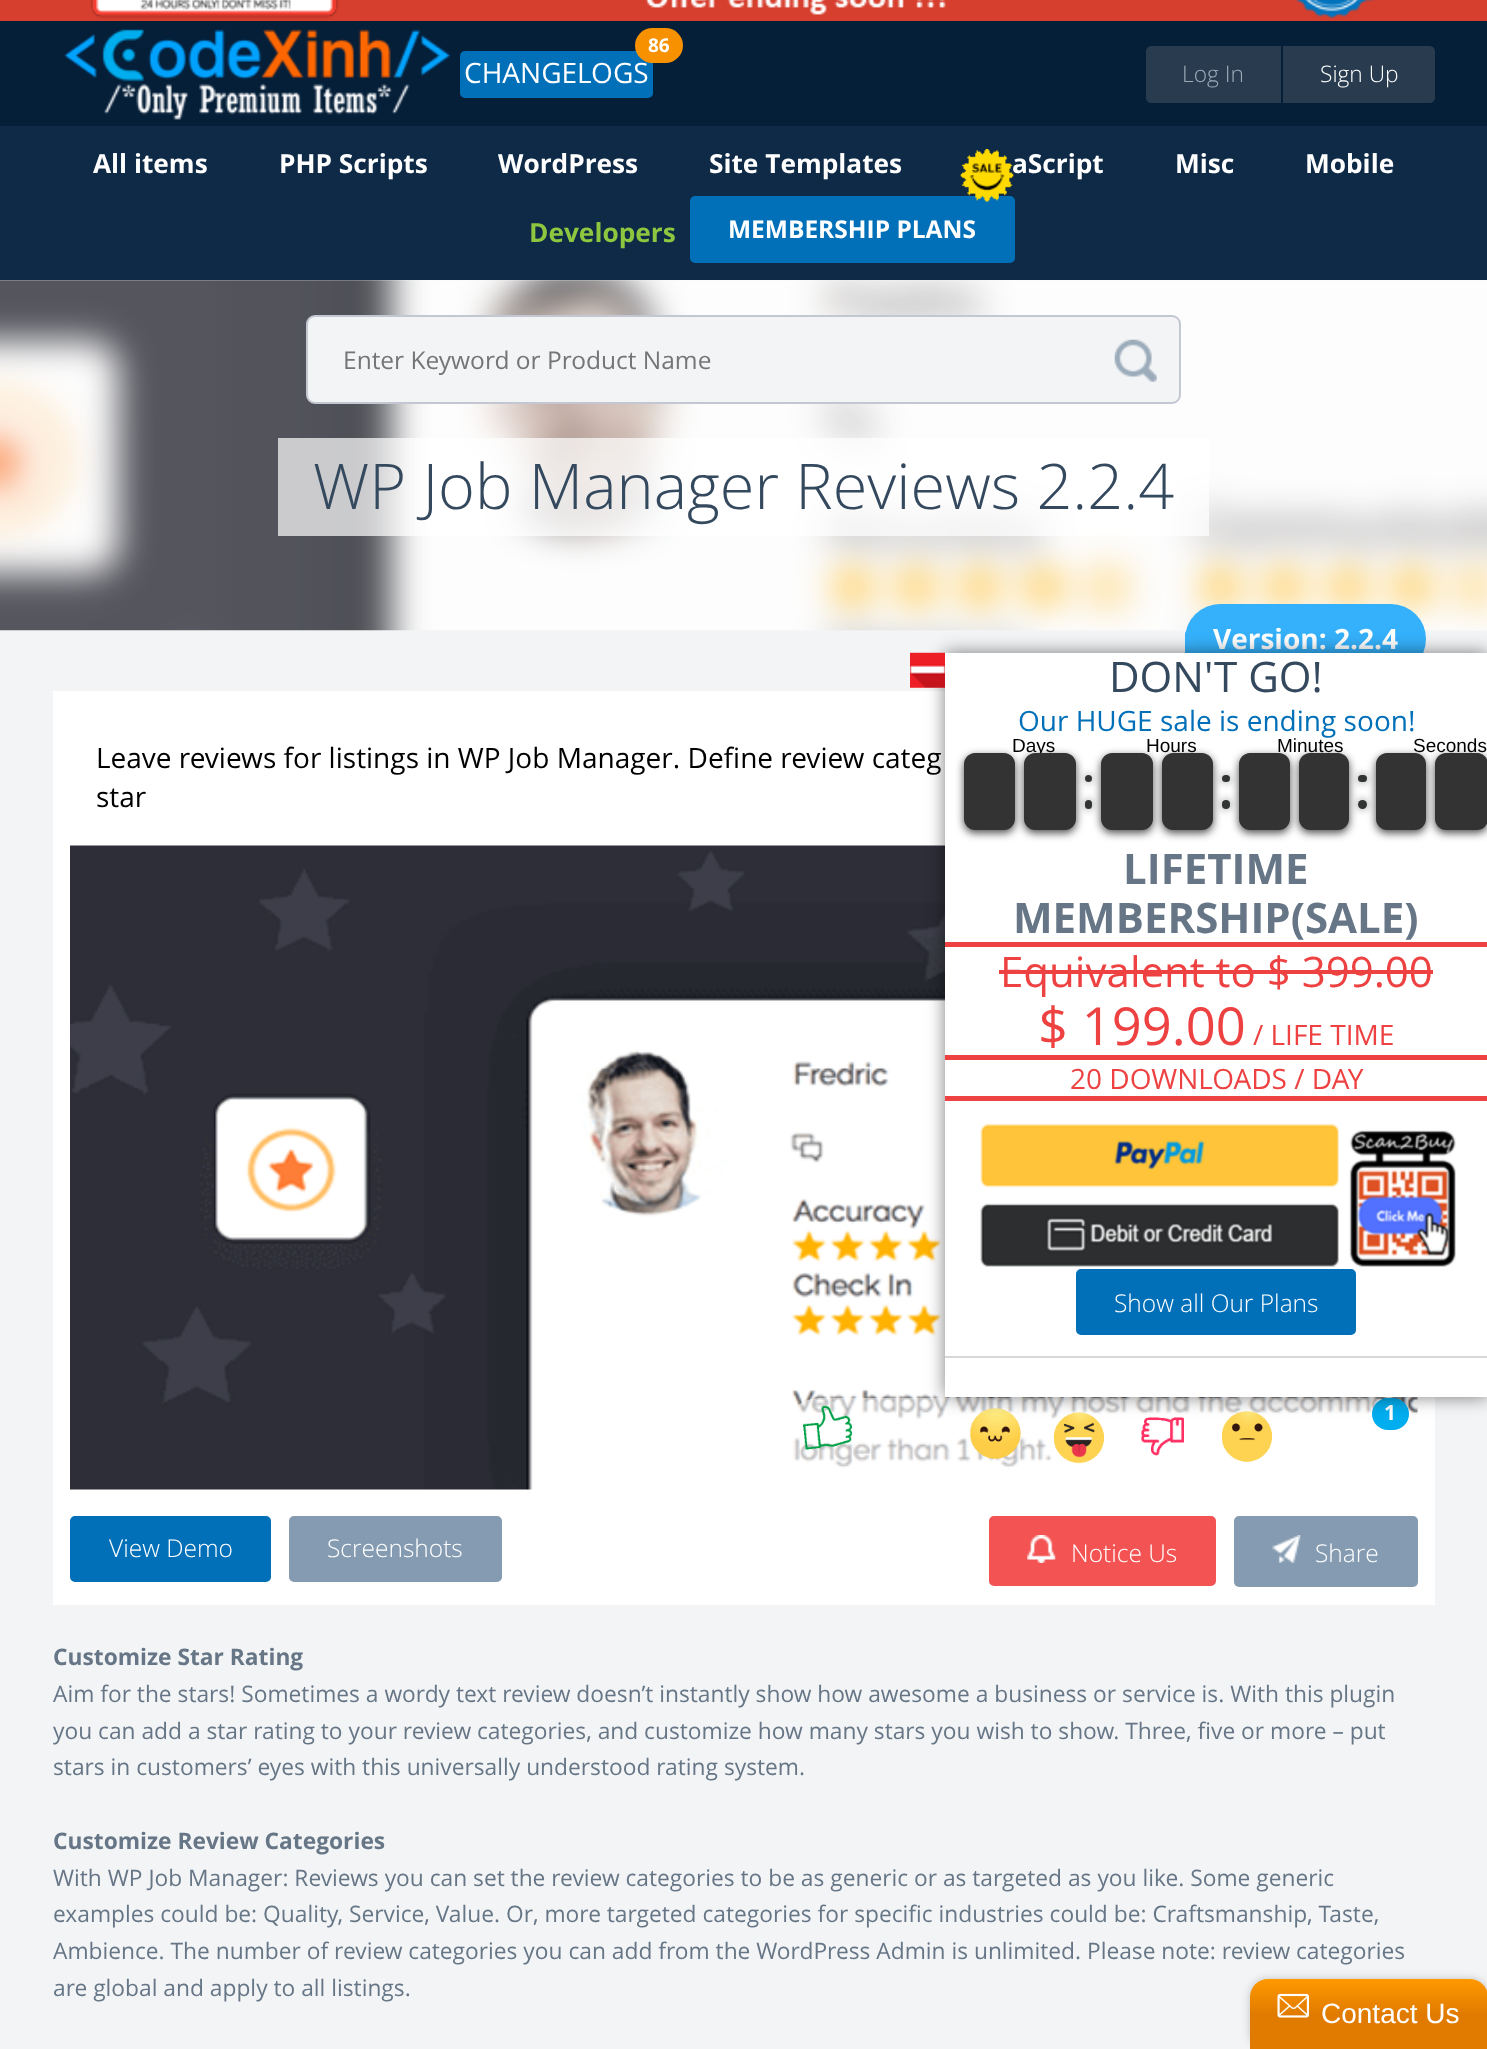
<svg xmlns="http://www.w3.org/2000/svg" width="1487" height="2049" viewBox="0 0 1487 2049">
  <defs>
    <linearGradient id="g1" gradientUnits="userSpaceOnUse" x1="1369" y1="1979" x2="1369" y2="2049"><stop offset="0" stop-color="rgb(255,153,0)"/><stop offset="0.5" stop-color="rgb(225,123,0)"/></linearGradient>
  </defs>
  <rect width="100%" height="100%" fill="rgb(243,244,246)"/>
  <rect x="0" y="0" width="1487" height="21" fill="rgb(214,62,46)"/>
  <image x="90" y="0" width="1285" height="19" href="pic1.png"/>
  <rect x="0" y="21" width="1487" height="105" fill="rgb(5,31,57)"/>
  <image x="64" y="29" width="387" height="91" href="pic2.png"/>
  <path d="M466 54H648C648 54 649 55 649 56V93H464V56C464 55 465 54 466 54Z" fill="rgb(1,112,185)"/>
  <rect x="462" y="53" width="189" height="43" rx="3" fill="none" stroke="rgb(1,112,185)" stroke-width="4"/>
  <text x="464" y="83" font-family="Open Sans" font-size="28" fill="rgb(255,255,255)">CHANGELOGS</text>
  <rect x="635" y="28" width="48" height="35" rx="17.5" fill="rgb(247,145,0)"/>
  <text x="648" y="52" font-family="Open Sans" font-size="19" font-weight="bold" fill="rgb(255,255,255)">86</text>
  <rect x="464" y="93" width="187" height="1" fill="rgb(1,112,185)"/>
  <path d="M1151 47H1280V102H1151C1149 102 1147 100 1147 98V51C1147 49 1149 47 1151 47Z" fill="rgb(41,60,79)" stroke="rgb(41,60,79)" stroke-width="2"/>
  <text x="1182" y="82" font-family="Open Sans" font-size="22.75" font-weight="300" fill="rgb(155,171,186)">Log In</text>
  <path d="M1284 47H1430C1432 47 1434 49 1434 51V98C1434 100 1432 102 1430 102H1284Z" fill="rgb(41,60,79)" stroke="rgb(41,60,79)" stroke-width="2"/>
  <text x="1320" y="82" font-family="Open Sans" font-size="22.75" font-weight="300" fill="rgb(255,255,255)">Sign Up</text>
  <rect x="0" y="126" width="1487" height="154" fill="rgb(14,42,71)"/>
  <g font-family="Open Sans" font-size="26.25" font-weight="bold" fill="rgb(255,255,255)">
    <text x="93" y="173">All items</text>
    <text x="279" y="173">PHP Scripts</text>
    <text x="498" y="173">WordPress</text>
    <text x="709" y="173">Site Templates</text>
    <text x="1012" y="173">aScript</text>
  </g>
  <path d="M695 200H1010C1011 200 1012 200 1012 201V257H693V201Z" fill="rgb(1,112,185)"/>
  <rect x="692" y="198" width="321" height="63" rx="3" fill="none" stroke="rgb(1,112,185)" stroke-width="4"/>
  <image x="960" y="149" width="54" height="53" href="pic3.png"/>
  <g font-family="Open Sans" font-size="26.25" font-weight="bold" fill="rgb(255,255,255)">
    <text x="1175" y="173">Misc</text>
    <text x="1305" y="173">Mobile</text>
  </g>
  <text x="529" y="242" font-family="Open Sans" font-size="26.25" font-weight="bold" fill="rgb(141,198,63)">Developers</text>
  <rect x="693" y="257" width="320" height="2" fill="rgb(1,112,185)"/>
  <text x="728" y="238" font-family="Open Sans" font-size="24.5" font-weight="bold" fill="rgb(255,255,255)">MEMBERSHIP PLANS</text>
  <image x="0" y="280" width="1487" height="351" href="pic4.png"/>
  <rect x="307" y="316" width="873" height="87" rx="8" fill="rgb(243,244,246)" stroke="rgb(195,199,209)" stroke-width="2"/>
  <text x="343" y="369" font-family="Open Sans" font-size="24.5" fill="rgb(117,117,117)">Enter Keyword or Product Name</text>
  <image x="1114" y="339" width="43" height="43" href="pic5.png"/>
  <rect x="278" y="438" width="931" height="98" fill="rgba(255,255,255,0.7)"/>
  <text x="313" y="509" font-family="Open Sans" font-size="63" font-weight="300" fill="rgb(52,73,94)">WP Job Manager Reviews 2.2.4</text>
  <rect x="53" y="691" width="1382" height="914" fill="rgb(255,255,255)"/>
  <rect x="1185" y="604" width="241" height="70" rx="35" fill="rgb(53,176,250)"/>
  <text x="1213" y="649" font-family="Open Sans" font-size="28" font-weight="bold" fill="rgb(255,255,255)">Version: 2.2.4</text>
  <path d="M1185 709V632L1223 670Z" fill="rgb(55,177,250)"/>
  <g font-family="Open Sans" font-size="28" fill="rgb(0,0,0)">
    <text>
      <tspan x="96" y="768">Leave reviews for listings in WP Job Manager. Define review categ</tspan>
      <tspan x="96" y="807">star</tspan>
    </text>
  </g>
  <image x="70" y="845" width="1348" height="645" href="pic6.png"/>
  <rect x="784" y="1398" width="625" height="83" rx="35" fill="rgba(255,255,255,0.6)"/>
  <image x="803" y="1405" width="49" height="45" href="pic7.png"/>
  <image x="970" y="1408" width="51" height="51" href="pic8.png"/>
  <image x="1053" y="1412" width="51" height="52" href="pic9.png"/>
  <image x="1141" y="1417" width="43" height="39" href="pic10.png"/>
  <image x="1221" y="1411" width="51" height="51" href="pic11.png"/>
  <rect x="1372" y="1398" width="37" height="32" rx="16" fill="rgb(0,173,238)"/>
  <text x="1384" y="1420" font-family="Open Sans" font-size="21" font-weight="bold" fill="rgb(255,255,255)">1</text>
  <path d="M75 1519H266C267 1519 268 1520 268 1521V1577H74V1520Z" fill="rgb(1,112,185)"/>
  <rect x="72" y="1518" width="197" height="62" rx="3" fill="none" stroke="rgb(1,112,185)" stroke-width="4"/>
  <rect x="74" y="1577" width="196" height="1" fill="rgb(1,112,185)"/>
  <text x="109" y="1557" font-family="Open Sans" font-size="24.5" font-weight="300" fill="rgb(255,255,255)">View Demo</text>
  <path d="M294 1519H497C498 1519 499 1520 499 1521V1577H292V1520Z" fill="rgb(133,155,177)"/>
  <rect x="291" y="1518" width="209" height="62" rx="3" fill="none" stroke="rgb(133,155,177)" stroke-width="4"/>
  <rect x="292" y="1577" width="209" height="1" fill="rgb(133,155,177)"/>
  <text x="327" y="1557" font-family="Open Sans" font-size="24.5" font-weight="300" fill="rgb(255,255,255)">Screenshots</text>
  <rect x="991" y="1518" width="223" height="66" rx="3" fill="rgb(244,83,83)" stroke="rgb(244,83,83)" stroke-width="4"/>
  <image x="1027" y="1535" width="29" height="28" href="pic12.png"/>
  <text x="1071" y="1562" font-family="Open Sans" font-size="24.5" font-weight="300" fill="rgb(255,255,255)">Notice Us</text>
  <path d="M1239 1519H1412C1413 1519 1414 1520 1414 1521V1582H1237V1521C1237 1520 1238 1519 1239 1519Z" fill="rgb(133,155,177)"/>
  <rect x="1236" y="1518" width="180" height="67" rx="3" fill="none" stroke="rgb(133,155,177)" stroke-width="4"/>
  <rect x="1237" y="1582" width="179" height="1" fill="rgb(133,155,177)"/>
  <image x="1272" y="1535" width="29" height="28" href="pic13.png"/>
  <text x="1315" y="1562" font-family="Open Sans" font-size="24.5" font-weight="300" fill="rgb(255,255,255)">Share</text>
  <text x="53" y="1665" font-family="Open Sans" font-size="22.75" font-weight="bold" fill="rgb(102,118,134)">Customize Star Rating</text>
  <g font-family="Open Sans" font-size="22.75" fill="rgb(102,118,134)">
    <text>
      <tspan x="53" y="1702">Aim for the stars! Sometimes a wordy text review doesn’t instantly show how awesome a business or service is. With this plugin</tspan>
      <tspan x="53" y="1739">you can add a star rating to your review categories, and customize how many stars you wish to show. Three, five or more – put</tspan>
      <tspan x="53" y="1775">stars in customers’ eyes with this universally understood rating system.</tspan>
    </text>
  </g>
  <text x="53" y="1849" font-family="Open Sans" font-size="22.75" font-weight="bold" fill="rgb(102,118,134)">Customize Review Categories</text>
  <g font-family="Open Sans" font-size="22.75" fill="rgb(102,118,134)">
    <text>
      <tspan x="53" y="1886">With WP Job Manager: Reviews you can set the review categories to be as generic or as targeted as you like. Some generic</tspan>
      <tspan x="53" y="1922">examples could be: Quality, Service, Value. Or, more targeted categories for specific industries could be: Craftsmanship, Taste,</tspan>
      <tspan x="53" y="1959">Ambience. The number of review categories you can add from the WordPress Admin is unlimited. Please note: review categories</tspan>
      <tspan x="53" y="1996">are global and apply to all listings.</tspan>
    </text>
  </g>
  <rect x="945" y="653" width="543" height="744" fill="rgba(0,0,0,0.5)" filter="blur(9px)"/>
  <rect x="945" y="653" width="542" height="744" fill="rgb(255,255,255)"/>
  <image x="910" y="652" width="35" height="36" href="pic14.png"/>
  <text x="1109" y="692" font-family="Open Sans" font-size="42" fill="rgb(52,73,94)">DON'T GO!</text>
  <text x="1018" y="731" font-family="Open Sans" font-size="28" fill="rgb(1,112,185)">Our HUGE sale is ending soon!</text>
  <rect x="964" y="756" width="51" height="77" rx="11" fill="rgba(0,0,0,0.7)" filter="blur(4.5px)"/>
  <text x="1012" y="752" font-family="Liberation Sans" font-size="19" fill="rgb(0,0,0)">Days</text>
  <rect x="1024" y="756" width="52" height="77" rx="11" fill="rgba(0,0,0,0.7)" filter="blur(4.5px)"/>
  <path d="M975 753H1004C1010 753 1015 758 1015 764V791H964V764C964 758 969 753 975 753Z" fill="rgb(51,51,51)"/>
  <path d="M964 791H1015V819C1015 825 1010 830 1004 830H975C969 830 964 825 964 819Z" fill="rgb(51,51,51)"/>
  <text x="1146" y="752" font-family="Liberation Sans" font-size="19" fill="rgb(0,0,0)">Hours</text>
  <rect x="1085" y="775" width="7" height="7" rx="3.5" fill="rgba(0,0,0,0.5)" filter="blur(4.5px)"/>
  <circle cx="1088.5" cy="778.5" r="3.5" fill="rgb(50,52,52)"/>
  <rect x="1085" y="800" width="7" height="9" rx="3.5" fill="rgba(0,0,0,0.5)" filter="blur(4.5px)"/>
  <rect x="1085" y="800" width="7" height="9" rx="3.5" fill="rgb(50,52,52)"/>
  <text x="1277" y="752" font-family="Liberation Sans" font-size="19" fill="rgb(0,0,0)">Minutes</text>
  <rect x="1222" y="775" width="8" height="7" rx="3.5" fill="rgba(0,0,0,0.5)" filter="blur(4.5px)"/>
  <rect x="1162" y="756" width="51" height="77" rx="11" fill="rgba(0,0,0,0.7)" filter="blur(4.5px)"/>
  <rect x="1222" y="775" width="8" height="7" rx="3.5" fill="rgb(50,52,52)"/>
  <rect x="1222" y="800" width="8" height="9" rx="4" fill="rgba(0,0,0,0.5)" filter="blur(4.5px)"/>
  <rect x="1222" y="800" width="8" height="9" rx="4" fill="rgb(50,52,52)"/>
  <text x="1413" y="752" font-family="Liberation Sans" font-size="19" fill="rgb(0,0,0)">Seconds</text>
  <rect x="1358" y="775" width="9" height="7" rx="3.5" fill="rgba(0,0,0,0.5)" filter="blur(4.5px)"/>
  <rect x="1299" y="756" width="50" height="77" rx="11" fill="rgba(0,0,0,0.7)" filter="blur(4.5px)"/>
  <rect x="1358" y="775" width="9" height="7" rx="3.5" fill="rgb(50,52,52)"/>
  <rect x="1358" y="800" width="9" height="9" rx="4.5" fill="rgba(0,0,0,0.5)" filter="blur(4.5px)"/>
  <circle cx="1362.5" cy="804.5" r="4.5" fill="rgb(50,52,52)"/>
  <path d="M1035 753H1065C1071 753 1076 758 1076 764V791H1024V764C1024 758 1029 753 1035 753Z" fill="rgb(51,51,51)"/>
  <path d="M1024 791H1076V819C1076 825 1071 830 1065 830H1035C1029 830 1024 825 1024 819Z" fill="rgb(51,51,51)"/>
  <rect x="1101" y="756" width="52" height="77" rx="11" fill="rgba(0,0,0,0.7)" filter="blur(4.5px)"/>
  <path d="M1112 753H1142C1148 753 1153 758 1153 764V791H1101V764C1101 758 1106 753 1112 753Z" fill="rgb(51,51,51)"/>
  <path d="M1101 791H1153V819C1153 825 1148 830 1142 830H1112C1106 830 1101 825 1101 819Z" fill="rgb(51,51,51)"/>
  <path d="M1173 753H1202C1208 753 1213 758 1213 764V791H1162V764C1162 758 1167 753 1173 753Z" fill="rgb(51,51,51)"/>
  <path d="M1162 791H1213V819C1213 825 1208 830 1202 830H1173C1167 830 1162 825 1162 819Z" fill="rgb(51,51,51)"/>
  <rect x="1239" y="756" width="51" height="77" rx="11" fill="rgba(0,0,0,0.7)" filter="blur(4.5px)"/>
  <path d="M1250 753H1279C1285 753 1290 758 1290 764V791H1239V764C1239 758 1244 753 1250 753Z" fill="rgb(51,51,51)"/>
  <path d="M1239 791H1290V819C1290 825 1285 830 1279 830H1250C1244 830 1239 825 1239 819Z" fill="rgb(51,51,51)"/>
  <path d="M1310 753H1338C1344 753 1349 758 1349 764V791H1299V764C1299 758 1304 753 1310 753Z" fill="rgb(51,51,51)"/>
  <path d="M1299 791H1349V819C1349 825 1344 830 1338 830H1310C1304 830 1299 825 1299 819Z" fill="rgb(51,51,51)"/>
  <rect x="1376" y="756" width="50" height="77" rx="11" fill="rgba(0,0,0,0.7)" filter="blur(4.5px)"/>
  <rect x="1435" y="756" width="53" height="77" rx="11" fill="rgba(0,0,0,0.7)" filter="blur(4.5px)"/>
  <path d="M1387 753H1415C1421 753 1426 758 1426 764V791H1376V764C1376 758 1381 753 1387 753Z" fill="rgb(51,51,51)"/>
  <path d="M1376 791H1426V819C1426 825 1421 830 1415 830H1387C1381 830 1376 825 1376 819Z" fill="rgb(51,51,51)"/>
  <path d="M1446 753H1477C1483 753 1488 758 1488 764V791H1435V764C1435 758 1440 753 1446 753Z" fill="rgb(51,51,51)"/>
  <path d="M1435 791H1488V819C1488 825 1483 830 1477 830H1446C1440 830 1435 825 1435 819Z" fill="rgb(51,51,51)"/>
  <rect x="945" y="942" width="542" height="5" fill="rgb(238,66,66)"/>
  <g font-family="Open Sans" font-size="42" font-weight="bold" fill="rgb(102,118,134)">
    <text x="1123" y="884">LIFETIME</text>
    <text x="1013" y="933">MEMBERSHIP(SALE)</text>
  </g>
  <rect x="945" y="1055" width="542" height="5" fill="rgb(238,66,66)"/>
  <text x="1000" y="987" font-family="Open Sans" font-size="42" fill="rgb(238,66,66)">Equivalent to $ 399.00</text>
  <rect x="999" y="970" width="434" height="4" fill="rgb(238,66,66)"/>
  <text x="1038" y="1045" font-family="Open Sans" font-size="52.5" fill="rgb(238,66,66)">$ 199.00</text>
  <text x="1253" y="1045" font-family="Open Sans" font-size="28" fill="rgb(238,66,66)">/ LIFE TIME</text>
  <rect x="945" y="1096" width="542" height="5" fill="rgb(238,66,66)"/>
  <text x="1070" y="1089" font-family="Open Sans" font-size="28" fill="rgb(238,66,66)">20 DOWNLOADS / DAY</text>
  <rect x="945" y="1356" width="542" height="2" fill="rgb(215,215,215)"/>
  <image x="980" y="1123" width="476" height="144" href="pic15.png"/>
  <path d="M1082 1272H1351C1352 1272 1353 1273 1353 1274V1330H1080V1273Z" fill="rgb(1,112,185)"/>
  <rect x="1078" y="1271" width="276" height="62" rx="3" fill="none" stroke="rgb(1,112,185)" stroke-width="4"/>
  <rect x="1080" y="1330" width="275" height="1" fill="rgb(1,112,185)"/>
  <text x="1114" y="1312" font-family="Open Sans" font-size="24.5" font-weight="300" fill="rgb(255,255,255)">Show all Our Plans</text>
  <rect x="1250" y="1979" width="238" height="70" rx="18" fill="rgba(0,0,0,0.2)" filter="blur(4.5px)"/>
  <path d="M1268 1979H1470C1480 1979 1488 1987 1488 1997V2049H1250V1997C1250 1987 1258 1979 1268 1979Z" fill="url(#g1)"/>
  <image x="1277" y="1993" width="32" height="25" href="pic16.png"/>
  <text x="1321" y="2023" font-family="Liberation Sans" font-size="28" fill="rgb(255,255,255)">Contact Us</text>
</svg>
